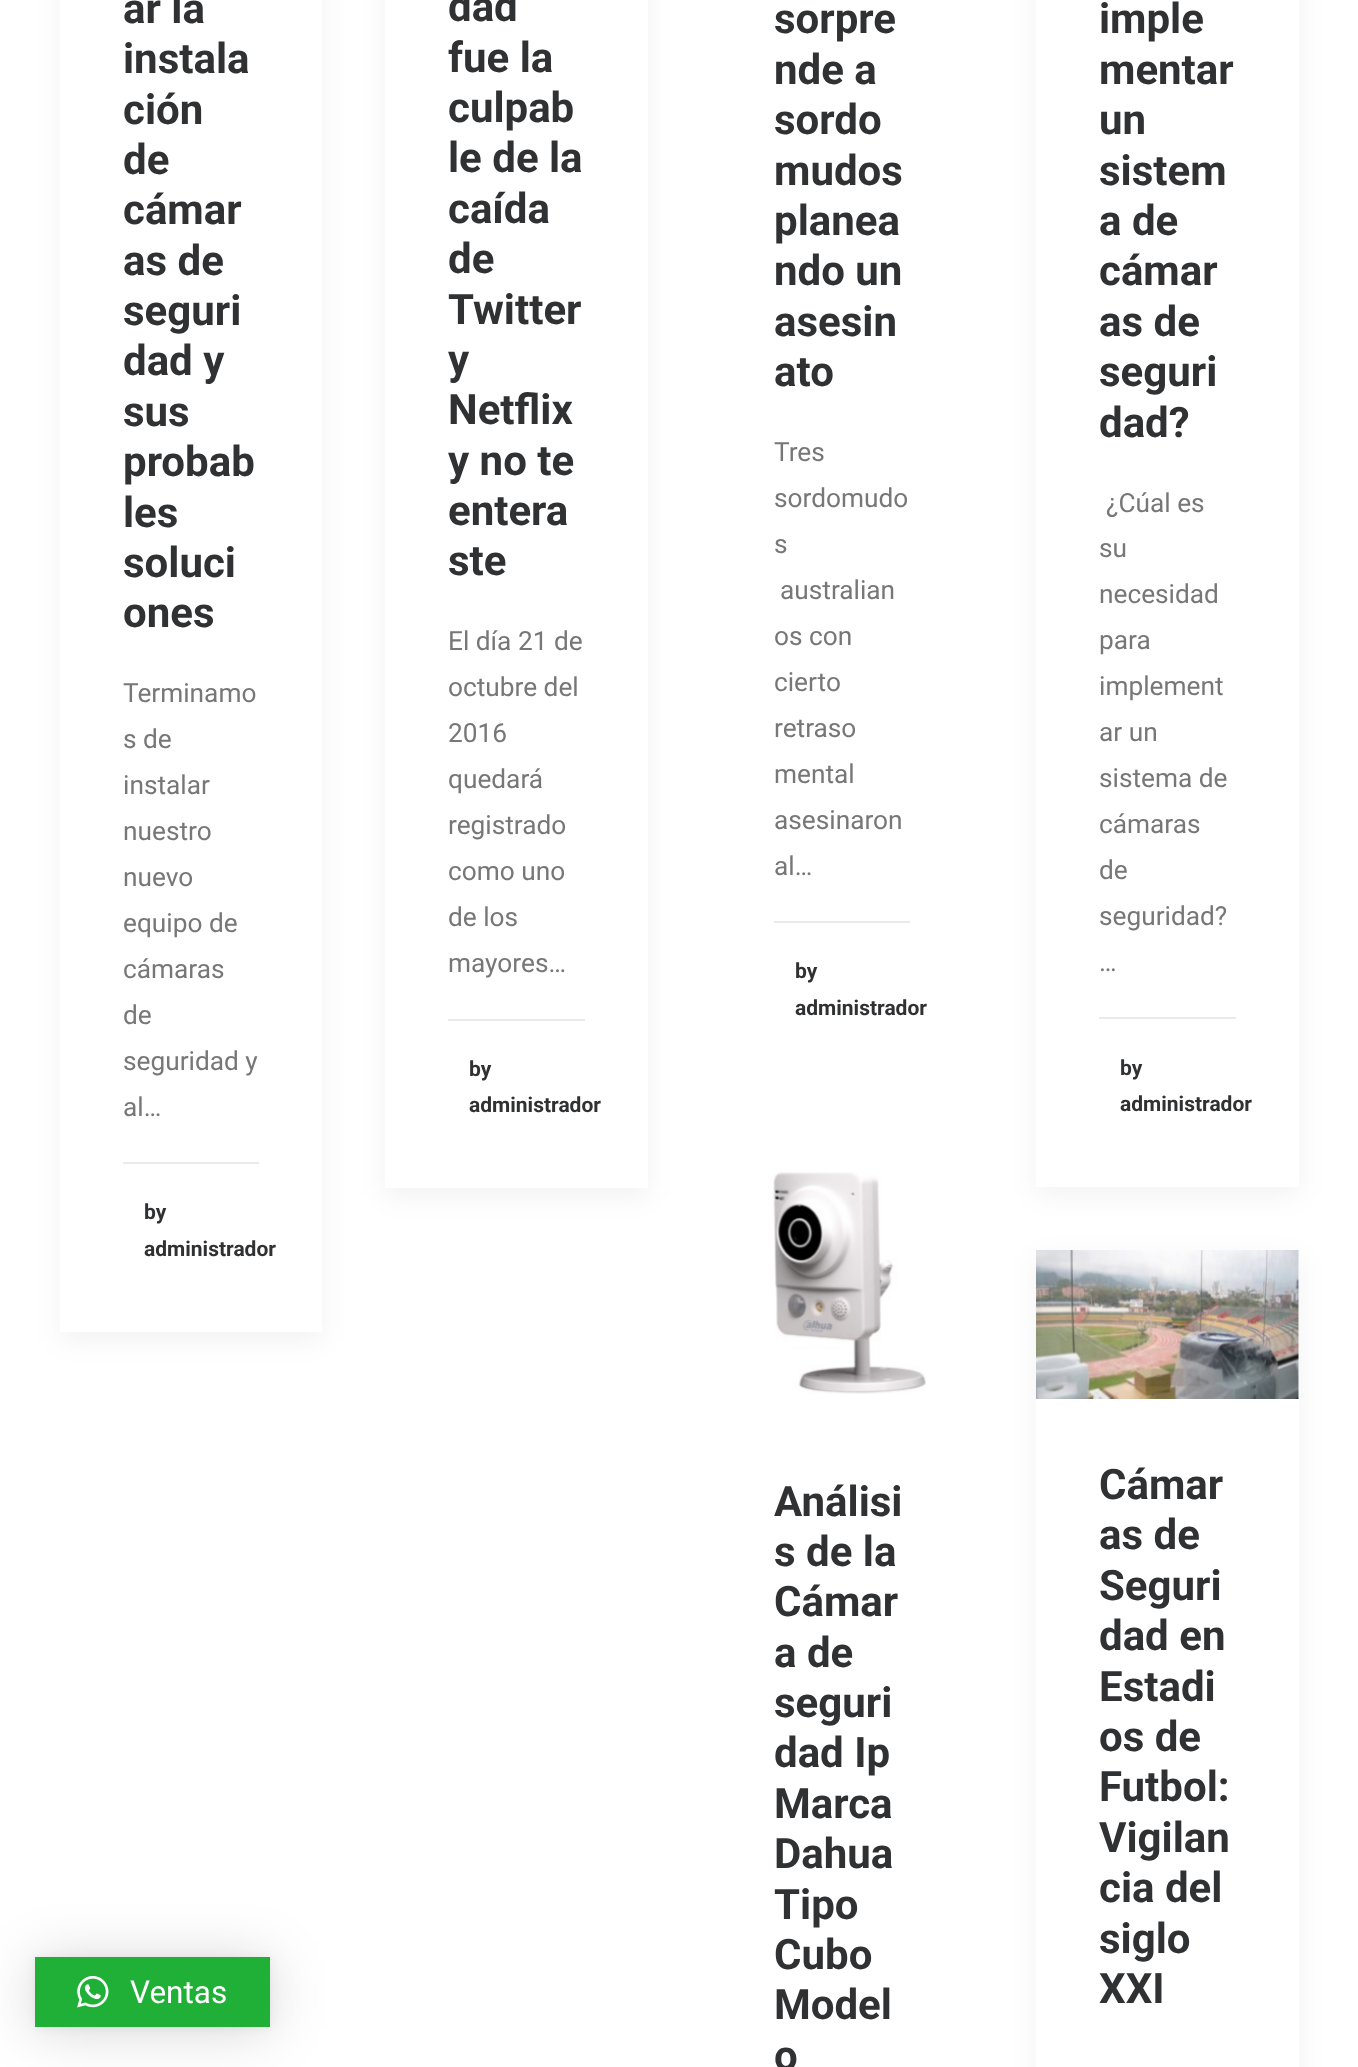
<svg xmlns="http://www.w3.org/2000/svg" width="1358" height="2067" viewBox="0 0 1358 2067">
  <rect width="100%" height="100%" fill="rgb(255,255,255)"/>
  <rect x="60" y="-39" width="262" height="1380" fill="rgba(0,0,0,0.05)" filter="blur(13px)"/>
  <rect x="60" y="0" width="262" height="1332" fill="rgb(255,255,255)"/>
  <g font-family="Roboto" font-size="42" font-weight="bold" fill="rgb(48,49,51)">
    <text>
      <tspan x="123" y="23">ar la</tspan>
      <tspan x="123" y="73">instala</tspan>
      <tspan x="123" y="124">ción</tspan>
      <tspan x="123" y="174">de</tspan>
      <tspan x="123" y="224">cámar</tspan>
      <tspan x="123" y="275">as de</tspan>
      <tspan x="123" y="325">seguri</tspan>
      <tspan x="123" y="375">dad y</tspan>
      <tspan x="123" y="426">sus</tspan>
      <tspan x="123" y="476">probab</tspan>
      <tspan x="123" y="527">les</tspan>
      <tspan x="123" y="577">soluci</tspan>
      <tspan x="123" y="627">ones</tspan>
    </text>
  </g>
  <g font-family="Roboto" font-size="26.25" fill="rgb(119,119,119)">
    <text>
      <tspan x="123" y="702">Terminamo</tspan>
      <tspan x="123" y="748">s de</tspan>
      <tspan x="123" y="794">instalar</tspan>
      <tspan x="123" y="840">nuestro</tspan>
      <tspan x="123" y="886">nuevo</tspan>
      <tspan x="123" y="932">equipo de</tspan>
      <tspan x="123" y="978">cámaras</tspan>
      <tspan x="123" y="1024">de</tspan>
      <tspan x="123" y="1070">seguridad y</tspan>
      <tspan x="123" y="1116">al…</tspan>
    </text>
  </g>
  <rect x="123" y="1162" width="136" height="2" fill="rgb(234,234,234)"/>
  <g font-family="Roboto" font-size="21" font-weight="bold" fill="rgb(48,49,51)">
    <text>
      <tspan x="144" y="1219">by</tspan>
      <tspan x="144" y="1256">administrador</tspan>
    </text>
  </g>
  <rect x="385" y="-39" width="263" height="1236" fill="rgba(0,0,0,0.05)" filter="blur(13px)"/>
  <rect x="385" y="0" width="263" height="1188" fill="rgb(255,255,255)"/>
  <g font-family="Roboto" font-size="42" font-weight="bold" fill="rgb(48,49,51)">
    <text>
      <tspan x="448" y="21">dad</tspan>
      <tspan x="448" y="72">fue la</tspan>
      <tspan x="448" y="122">culpab</tspan>
      <tspan x="448" y="172">le de la</tspan>
      <tspan x="448" y="223">caída</tspan>
      <tspan x="448" y="273">de</tspan>
      <tspan x="448" y="324">Twitter</tspan>
      <tspan x="448" y="374">y</tspan>
      <tspan x="448" y="424">Netflix</tspan>
      <tspan x="448" y="475">y no te</tspan>
      <tspan x="448" y="525">entera</tspan>
      <tspan x="448" y="575">ste</tspan>
    </text>
  </g>
  <g font-family="Roboto" font-size="26.25" fill="rgb(119,119,119)">
    <text>
      <tspan x="448" y="650">El día 21 de</tspan>
      <tspan x="448" y="696">octubre del</tspan>
      <tspan x="448" y="742">2016</tspan>
      <tspan x="448" y="788">quedará</tspan>
      <tspan x="448" y="834">registrado</tspan>
      <tspan x="448" y="880">como uno</tspan>
      <tspan x="448" y="926">de los</tspan>
      <tspan x="448" y="972">mayores…</tspan>
    </text>
  </g>
  <rect x="448" y="1019" width="137" height="2" fill="rgb(234,234,234)"/>
  <g font-family="Roboto" font-size="21" font-weight="bold" fill="rgb(48,49,51)">
    <text>
      <tspan x="469" y="1076">by</tspan>
      <tspan x="469" y="1112">administrador</tspan>
    </text>
  </g>
  <g font-family="Roboto" font-size="42" font-weight="bold" fill="rgb(48,49,51)">
    <text>
      <tspan x="774" y="33">sorpre</tspan>
      <tspan x="774" y="84">nde a</tspan>
      <tspan x="774" y="134">sordo</tspan>
      <tspan x="774" y="185">mudos</tspan>
      <tspan x="774" y="235">planea</tspan>
      <tspan x="774" y="285">ndo un</tspan>
      <tspan x="774" y="336">asesin</tspan>
      <tspan x="774" y="386">ato</tspan>
    </text>
  </g>
  <g font-family="Roboto" font-size="26.25" fill="rgb(119,119,119)">
    <text>
      <tspan x="774" y="461">Tres</tspan>
      <tspan x="774" y="507">sordomudo</tspan>
      <tspan x="774" y="553">s</tspan>
    </text>
    <text x="780" y="599">australian</text>
    <text>
      <tspan x="774" y="645">os con</tspan>
      <tspan x="774" y="691">cierto</tspan>
      <tspan x="774" y="737">retraso</tspan>
      <tspan x="774" y="783">mental</tspan>
      <tspan x="774" y="829">asesinaron</tspan>
      <tspan x="774" y="875">al…</tspan>
    </text>
  </g>
  <rect x="774" y="921" width="136" height="2" fill="rgb(234,234,234)"/>
  <g font-family="Roboto" font-size="21" font-weight="bold" fill="rgb(48,49,51)">
    <text>
      <tspan x="795" y="978">by</tspan>
      <tspan x="795" y="1015">administrador</tspan>
    </text>
  </g>
  <rect x="1036" y="-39" width="263" height="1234" fill="rgba(0,0,0,0.05)" filter="blur(13px)"/>
  <rect x="1036" y="0" width="263" height="1187" fill="rgb(255,255,255)"/>
  <g font-family="Roboto" font-size="42" font-weight="bold" fill="rgb(48,49,51)">
    <text>
      <tspan x="1099" y="33">imple</tspan>
      <tspan x="1099" y="84">mentar</tspan>
      <tspan x="1099" y="134">un</tspan>
      <tspan x="1099" y="185">sistem</tspan>
      <tspan x="1099" y="235">a de</tspan>
      <tspan x="1099" y="285">cámar</tspan>
      <tspan x="1099" y="336">as de</tspan>
      <tspan x="1099" y="386">seguri</tspan>
      <tspan x="1099" y="437">dad?</tspan>
    </text>
  </g>
  <g font-family="Roboto" font-size="26.25" fill="rgb(119,119,119)">
    <text x="1106" y="512">¿Cúal es</text>
    <text>
      <tspan x="1099" y="557">su</tspan>
      <tspan x="1099" y="603">necesidad</tspan>
      <tspan x="1099" y="649">para</tspan>
      <tspan x="1099" y="695">implement</tspan>
      <tspan x="1099" y="741">ar un</tspan>
      <tspan x="1099" y="787">sistema de</tspan>
      <tspan x="1099" y="833">cámaras</tspan>
      <tspan x="1099" y="879">de</tspan>
      <tspan x="1099" y="925">seguridad?</tspan>
      <tspan x="1099" y="971">…</tspan>
    </text>
  </g>
  <rect x="1099" y="1017" width="137" height="2" fill="rgb(234,234,234)"/>
  <g font-family="Roboto" font-size="21" font-weight="bold" fill="rgb(48,49,51)">
    <text>
      <tspan x="1120" y="1075">by</tspan>
      <tspan x="1120" y="1111">administrador</tspan>
    </text>
  </g>
  <image x="773" y="1172" width="153" height="222" href="pic1.png"/>
  <g font-family="Roboto" font-size="42" font-weight="bold" fill="rgb(48,49,51)">
    <text>
      <tspan x="774" y="1516">Análisi</tspan>
      <tspan x="774" y="1566">s de la</tspan>
      <tspan x="774" y="1616">Cámar</tspan>
      <tspan x="774" y="1667">a de</tspan>
      <tspan x="774" y="1717">seguri</tspan>
      <tspan x="774" y="1767">dad Ip</tspan>
      <tspan x="774" y="1818">Marca</tspan>
      <tspan x="774" y="1868">Dahua</tspan>
      <tspan x="774" y="1919">Tipo</tspan>
      <tspan x="774" y="1969">Cubo</tspan>
      <tspan x="774" y="2019">Model</tspan>
      <tspan x="774" y="2070">o</tspan>
    </text>
  </g>
  <rect x="1036" y="1258" width="263" height="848" fill="rgba(0,0,0,0.05)" filter="blur(13px)"/>
  <rect x="1036" y="1250" width="263" height="817" fill="rgb(255,255,255)"/>
  <image x="1036" y="1250" width="263" height="149" href="pic2.png"/>
  <g font-family="Roboto" font-size="42" font-weight="bold" fill="rgb(48,49,51)">
    <text>
      <tspan x="1099" y="1499">Cámar</tspan>
      <tspan x="1099" y="1549">as de</tspan>
      <tspan x="1099" y="1600">Seguri</tspan>
      <tspan x="1099" y="1650">dad en</tspan>
      <tspan x="1099" y="1701">Estadi</tspan>
      <tspan x="1099" y="1751">os de</tspan>
      <tspan x="1099" y="1801">Futbol:</tspan>
      <tspan x="1099" y="1852">Vigilan</tspan>
      <tspan x="1099" y="1902">cia del</tspan>
      <tspan x="1099" y="1953">siglo</tspan>
      <tspan x="1099" y="2003">XXI</tspan>
    </text>
  </g>
  <rect x="35" y="1960" width="235" height="70" fill="rgba(0,0,0,0.16)" filter="blur(28px)"/>
  <rect x="35" y="1958" width="235" height="70" fill="rgba(0,0,0,0.06)" filter="blur(5px)"/>
  <rect x="35" y="1957" width="235" height="70" fill="rgb(32,176,56)"/>
  <image x="77" y="1976" width="32" height="32" href="pic3.png"/>
  <text x="130" y="2003" font-family="Roboto" font-size="31.5" fill="rgb(255,255,255)">Ventas</text>
</svg>
